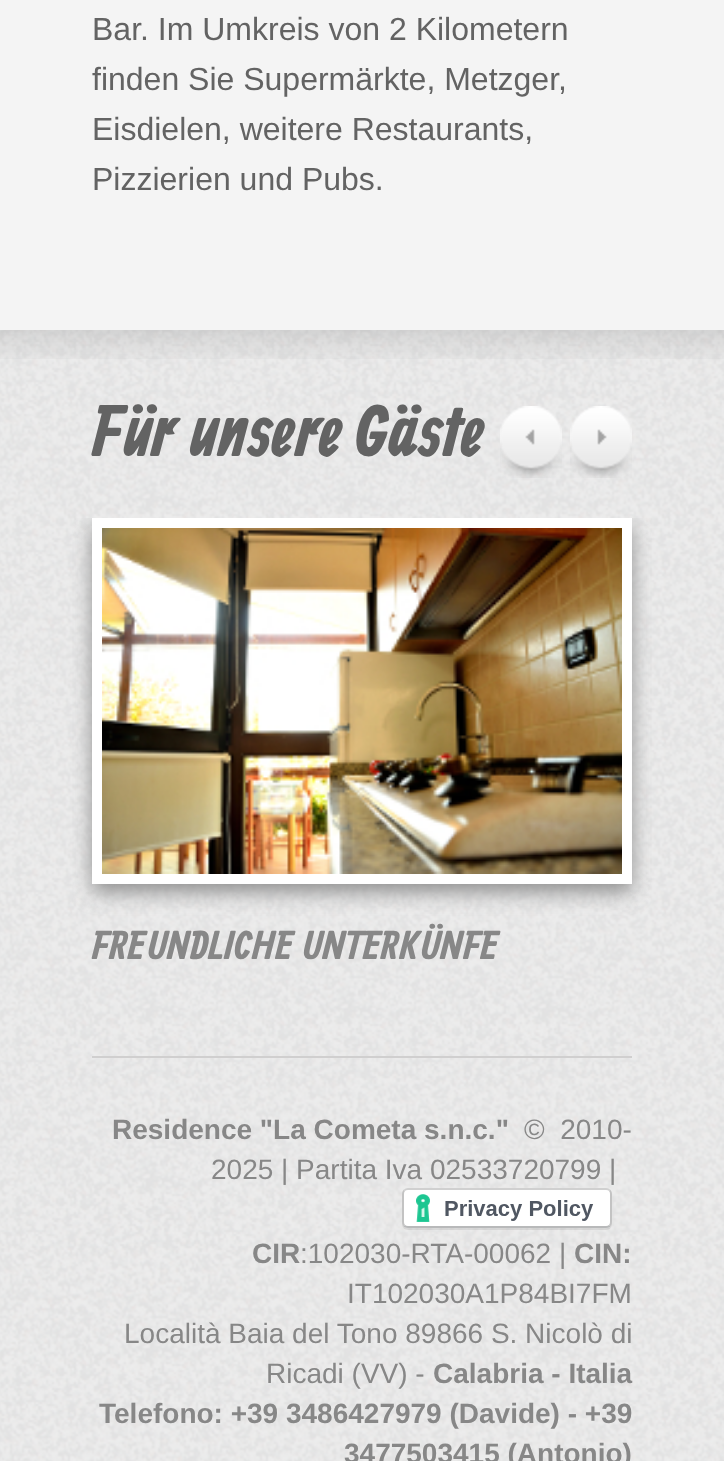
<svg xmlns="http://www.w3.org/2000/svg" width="724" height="1461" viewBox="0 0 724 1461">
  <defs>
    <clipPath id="clip1"><rect x="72" y="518" width="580" height="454"/></clipPath>
  </defs>
  <rect width="100%" height="100%" fill="rgb(255,255,255)"/>
  <image x="0" y="330" width="724" height="1131" href="pic1.png"/>
  <rect x="0" y="0" width="724" height="330" fill="rgb(244,244,244)"/>
  <g font-family="Liberation Sans" font-size="32" fill="rgb(99,99,99)">
    <text>
      <tspan x="92" y="40">Bar. Im Umkreis von 2 Kilometern</tspan>
      <tspan x="92" y="90">finden Sie Supermärkte, Metzger,</tspan>
      <tspan x="92" y="140">Eisdielen, weitere Restaurants,</tspan>
      <tspan x="92" y="190">Pizzierien und Pubs.</tspan>
    </text>
  </g>
  <image x="0" y="330" width="724" height="29" href="pic2.png"/>
  <text x="92" y="456" font-family="Allan" font-size="72" font-weight="bold" fill="rgb(99,99,99)">Für unsere Gäste</text>
  <image x="500" y="406" width="62" height="72" href="pic3.png"/>
  <image x="570" y="406" width="62" height="72" href="pic4.png"/>
  <g clip-path="url(#clip1)">
    <rect x="92" y="526" width="540" height="366" rx="4" fill="rgb(142,142,142)" filter="blur(10px)"/>
  </g>
  <path d="M97 523H627V879H97Z" fill="none" stroke="rgb(255,255,255)" stroke-width="10"/>
  <image x="102" y="528" width="520" height="346" href="pic5.png"/>
  <text x="92" y="959" font-family="Allan" font-size="40" font-weight="bold" fill="rgb(135,135,135)">FREUNDLICHE UNTERKÜNFE</text>
  <rect x="92" y="1056" width="540" height="2" fill="rgb(208,207,207)"/>
  <text x="112" y="1139" font-family="Liberation Sans" font-size="28" font-weight="bold" fill="rgb(135,135,135)">Residence "La Cometa s.n.c."</text>
  <g font-family="Liberation Sans" font-size="28" fill="rgb(135,135,135)">
    <text x="524" y="1139" xml:space="preserve">©  2010-</text>
    <text x="211" y="1179">2025 | Partita Iva 02533720799 |</text>
  </g>
  <image x="402" y="1188" width="210" height="42" href="pic6.png"/>
  <text x="252" y="1263" font-family="Liberation Sans" font-size="28" font-weight="bold" fill="rgb(135,135,135)">CIR</text>
  <text x="300" y="1263" font-family="Liberation Sans" font-size="28" fill="rgb(135,135,135)">:102030-RTA-00062 |</text>
  <text x="574" y="1263" font-family="Liberation Sans" font-size="28" font-weight="bold" fill="rgb(135,135,135)">CIN:</text>
  <g font-family="Liberation Sans" font-size="28" fill="rgb(135,135,135)">
    <text x="347" y="1303">IT102030A1P84BI7FM</text>
    <text x="124" y="1343">Località Baia del Tono 89866 S. Nicolò di</text>
    <text x="266" y="1383">Ricadi (VV) -</text>
  </g>
  <g font-family="Liberation Sans" font-size="28" font-weight="bold" fill="rgb(135,135,135)">
    <text x="433" y="1383">Calabria - Italia</text>
    <text x="99" y="1423">Telefono: +39 3486427979 (Davide) - +39</text>
    <text x="344" y="1463">3477503415 (Antonio)</text>
  </g>
</svg>
